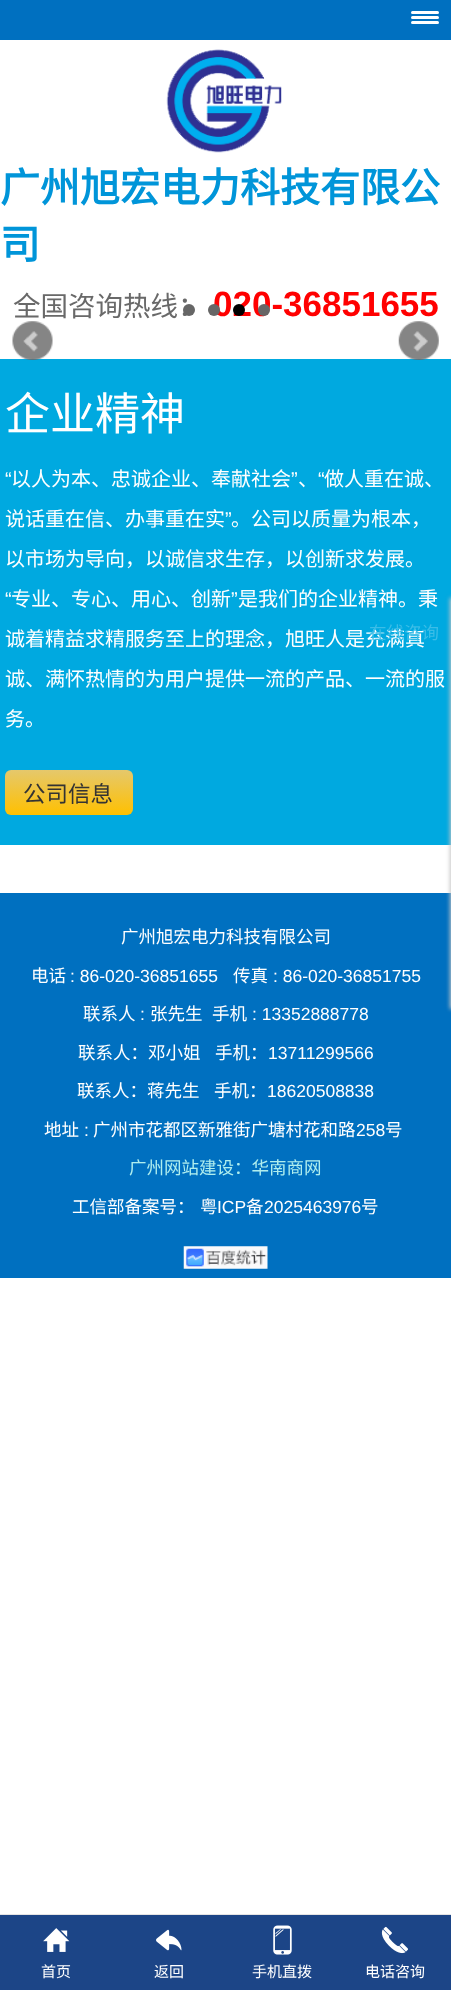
<svg xmlns="http://www.w3.org/2000/svg" width="451" height="1990" viewBox="0 0 451 1990">
  <defs>
    <linearGradient id="g1" gradientUnits="userSpaceOnUse" x1="69" y1="770" x2="69" y2="815"><stop offset="0" stop-color="rgb(229,200,108)"/><stop offset="1" stop-color="rgb(255,192,0)"/></linearGradient>
  </defs>
  <rect width="100%" height="100%" fill="rgb(255,255,255)"/>
  <rect x="0" y="0" width="451" height="40" fill="rgb(0,112,192)"/>
  <rect x="411" y="11" width="28" height="3" rx="1.5" fill="rgb(255,255,255)"/>
  <rect x="411" y="16" width="28" height="3" rx="1.5" fill="rgb(255,255,255)"/>
  <rect x="411" y="21" width="28" height="3" rx="1.5" fill="rgb(255,255,255)"/>
  <image x="166" y="49" width="116" height="104" href="pic1.png"/>
  <g font-family="Noto Sans CJK SC" font-size="40" font-weight="bold" fill="rgb(0,149,217)">
    <text>
      <tspan x="0" y="202">广州旭宏电力科技有限公</tspan>
      <tspan x="0" y="259">司</tspan>
    </text>
  </g>
  <text x="13" y="316" font-family="Noto Sans CJK SC" font-size="27.5" fill="rgb(105,105,105)">全国咨询热线：</text>
  <text x="213" y="316" font-family="Liberation Sans" font-size="35" font-weight="bold" fill="rgb(255,0,0)">020-36851655</text>
  <circle cx="189" cy="310" r="6" fill="rgb(102,102,102)"/>
  <circle cx="214" cy="310" r="6" fill="rgb(102,102,102)"/>
  <circle cx="239" cy="310" r="6" fill="rgb(0,0,0)"/>
  <circle cx="264" cy="310" r="6" fill="rgb(102,102,102)"/>
  <rect x="0" y="359" width="451" height="486" fill="rgb(0,169,224)"/>
  <image x="12" y="321" width="41" height="39" href="pic2.png"/>
  <image x="398" y="321" width="41" height="39" href="pic3.png"/>
  <text x="5" y="430" font-family="Noto Sans CJK SC" font-size="45" fill="rgb(255,255,255)">企业精神</text>
  <text x="5" y="486" font-family="Liberation Sans" font-size="20" fill="rgb(255,255,255)">“</text>
  <text x="11" y="486" font-family="Noto Sans CJK SC" font-size="20" fill="rgb(255,255,255)">以人为本、忠诚企业、奉献社会</text>
  <g font-family="Liberation Sans" font-size="20" fill="rgb(255,255,255)">
    <text x="291" y="486">”</text>
    <text x="318" y="486">“</text>
  </g>
  <g font-family="Noto Sans CJK SC" font-size="20" fill="rgb(255,255,255)">
    <text x="324" y="486">做人重在诚、</text>
    <text x="298" y="486">、</text>
    <text x="5" y="526">说话重在信、办事重在实</text>
  </g>
  <text x="225" y="526" font-family="Liberation Sans" font-size="20" fill="rgb(255,255,255)">”</text>
  <g font-family="Noto Sans CJK SC" font-size="20" fill="rgb(255,255,255)">
    <text x="231" y="526">。公司以质量为根本，</text>
    <text x="5" y="566">以市场为导向，以诚信求生存，以创新求发展。</text>
  </g>
  <text x="5" y="606" font-family="Liberation Sans" font-size="20" fill="rgb(255,255,255)">“</text>
  <text x="11" y="606" font-family="Noto Sans CJK SC" font-size="20" fill="rgb(255,255,255)">专业、专心、用心、创新</text>
  <text x="231" y="606" font-family="Liberation Sans" font-size="20" fill="rgb(255,255,255)">”</text>
  <g font-family="Noto Sans CJK SC" font-size="20" fill="rgb(255,255,255)">
    <text x="238" y="606">是我们的企业精神。秉</text>
    <text x="5" y="646">诚着精益求精服务至上的理念，旭旺人是充满真</text>
    <text x="5" y="686">诚、满怀热情的为用户提供一流的产品、一流的服</text>
    <text x="5" y="726">务。</text>
  </g>
  <rect x="5" y="770" width="128" height="45" rx="6" fill="url(#g1)"/>
  <text x="23" y="802" font-family="Noto Sans CJK SC" font-size="22.5" fill="rgb(51,51,51)">公司信息</text>
  <rect x="0" y="893" width="451" height="385" fill="rgb(0,112,192)"/>
  <text x="369" y="639" font-family="Noto Sans CJK SC" font-size="17.5" fill="rgb(59,189,231)">在线咨询</text>
  <rect x="450" y="598" width="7" height="411" fill="rgb(197,197,197)" filter="blur(2px)"/>
  <g font-family="Noto Sans CJK SC" font-size="17.5" fill="rgb(255,255,255)">
    <text x="121" y="943">广州旭宏电力科技有限公司</text>
    <text x="31" y="982">电话</text>
  </g>
  <text x="70" y="982" font-family="Liberation Sans" font-size="17.5" fill="rgb(255,255,255)">: 86-020-36851655</text>
  <text x="233" y="982" font-family="Noto Sans CJK SC" font-size="17.5" fill="rgb(255,255,255)">传真</text>
  <text x="273" y="982" font-family="Liberation Sans" font-size="17.5" fill="rgb(255,255,255)">: 86-020-36851755</text>
  <text x="83" y="1020" font-family="Noto Sans CJK SC" font-size="17.5" fill="rgb(255,255,255)">联系人</text>
  <text x="140" y="1020" font-family="Liberation Sans" font-size="17.5" fill="rgb(255,255,255)">:</text>
  <g font-family="Noto Sans CJK SC" font-size="17.5" fill="rgb(255,255,255)">
    <text x="150" y="1020">张先生</text>
    <text x="212" y="1020">手机</text>
  </g>
  <text x="252" y="1020" font-family="Liberation Sans" font-size="17.5" fill="rgb(255,255,255)">: 13352888778</text>
  <g font-family="Noto Sans CJK SC" font-size="17.5" fill="rgb(255,255,255)">
    <text x="78" y="1059">联系人：邓小姐</text>
    <text x="215" y="1059">手机：</text>
  </g>
  <text x="268" y="1059" font-family="Liberation Sans" font-size="17.5" fill="rgb(255,255,255)">13711299566</text>
  <g font-family="Noto Sans CJK SC" font-size="17.5" fill="rgb(255,255,255)">
    <text x="77" y="1097">联系人：蒋先生</text>
    <text x="214" y="1097">手机：</text>
  </g>
  <text x="267" y="1097" font-family="Liberation Sans" font-size="17.5" fill="rgb(255,255,255)">18620508838</text>
  <text x="44" y="1136" font-family="Noto Sans CJK SC" font-size="17.5" fill="rgb(255,255,255)">地址</text>
  <text x="84" y="1136" font-family="Liberation Sans" font-size="17.5" fill="rgb(255,255,255)">:</text>
  <text x="93" y="1136" font-family="Noto Sans CJK SC" font-size="17.5" fill="rgb(255,255,255)">广州市花都区新雅街广塘村花和路</text>
  <text x="356" y="1136" font-family="Liberation Sans" font-size="17.5" fill="rgb(255,255,255)">258</text>
  <text x="385" y="1136" font-family="Noto Sans CJK SC" font-size="17.5" fill="rgb(255,255,255)">号</text>
  <text x="129" y="1174" font-family="Noto Sans CJK SC" font-size="17.5" fill="rgb(175,238,238)">广州网站建设：华南商网</text>
  <g font-family="Noto Sans CJK SC" font-size="17.5" fill="rgb(255,255,255)">
    <text x="72" y="1213">工信部备案号：</text>
    <text x="200" y="1213">粤</text>
  </g>
  <text x="217" y="1213" font-family="Liberation Sans" font-size="17.5" fill="rgb(255,255,255)">ICP</text>
  <text x="246" y="1213" font-family="Noto Sans CJK SC" font-size="17.5" fill="rgb(255,255,255)">备</text>
  <text x="264" y="1213" font-family="Liberation Sans" font-size="17.5" fill="rgb(255,255,255)">2025463976</text>
  <text x="361" y="1213" font-family="Noto Sans CJK SC" font-size="17.5" fill="rgb(255,255,255)">号</text>
  <image x="183" y="1246" width="85" height="23" href="pic4.png"/>
  <rect x="0" y="1915" width="451" height="75" fill="rgb(28,69,135)"/>
  <rect x="0" y="1914" width="451" height="1" fill="rgb(228,228,228)"/>
  <image x="43" y="1928" width="27" height="24" href="pic5.png"/>
  <text x="41" y="1977" font-family="Noto Sans CJK SC" font-size="15" fill="rgb(255,255,255)">首页</text>
  <image x="156" y="1929" width="26" height="22" href="pic6.png"/>
  <text x="154" y="1977" font-family="Noto Sans CJK SC" font-size="15" fill="rgb(255,255,255)">返回</text>
  <image x="273" y="1925" width="19" height="30" href="pic7.png"/>
  <text x="252" y="1977" font-family="Noto Sans CJK SC" font-size="15" fill="rgb(255,255,255)">手机直拨</text>
  <image x="381" y="1926" width="27" height="28" href="pic8.png"/>
  <text x="365" y="1977" font-family="Noto Sans CJK SC" font-size="15" fill="rgb(255,255,255)">电话咨询</text>
</svg>
